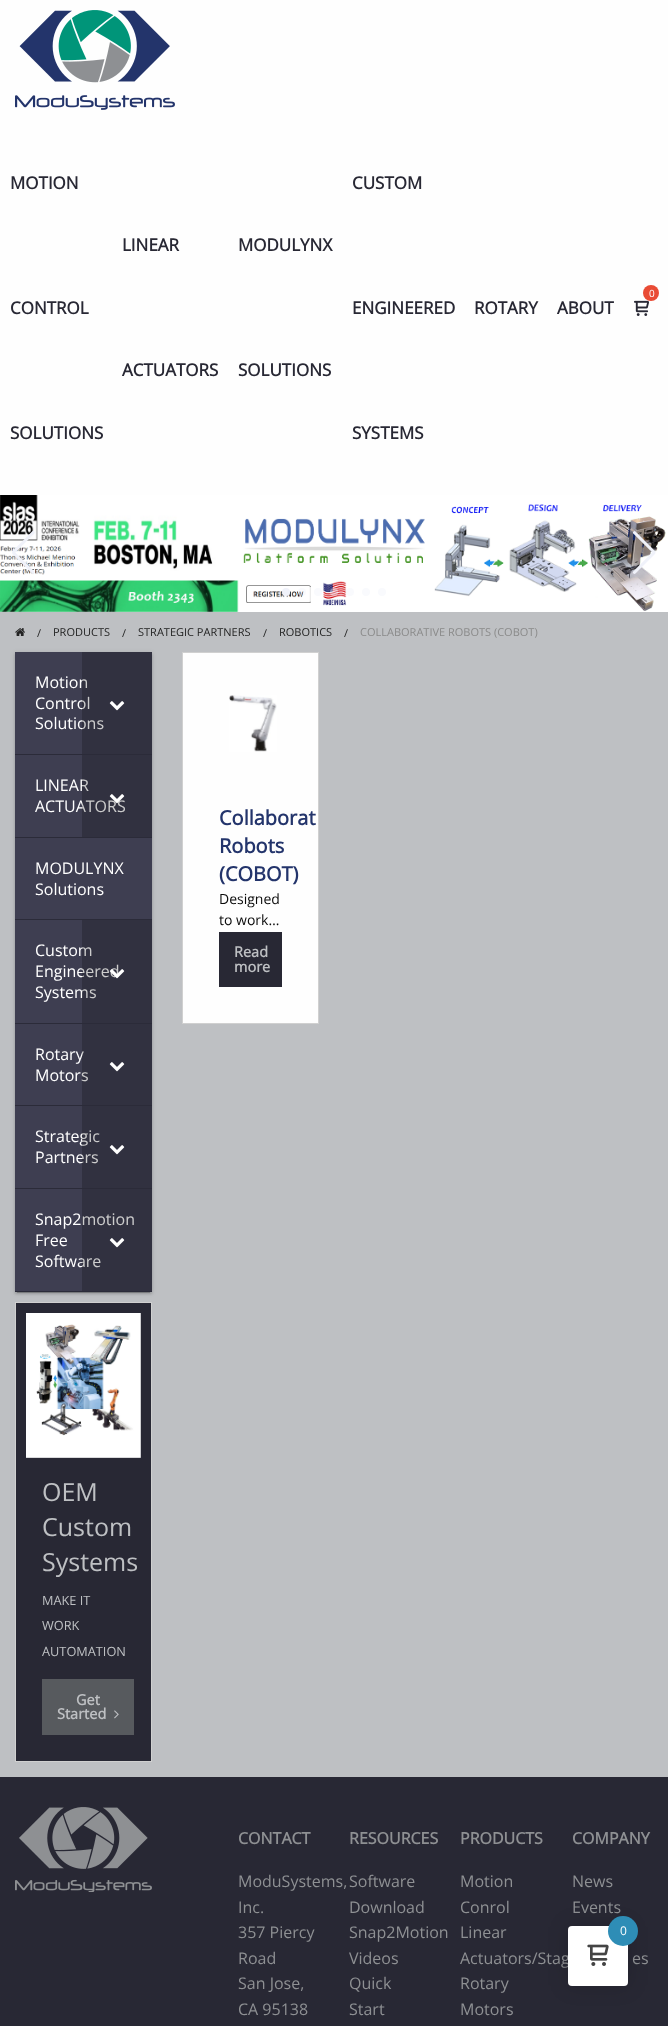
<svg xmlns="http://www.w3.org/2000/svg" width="668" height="2026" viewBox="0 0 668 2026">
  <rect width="100%" height="100%" fill="rgb(190,192,195)"/>
  <rect x="0" y="0" width="668" height="495" fill="rgb(254,254,254)"/>
  <image x="15" y="10" width="160" height="100" href="pic1.png"/>
  <g font-family="Open Sans" font-size="17" font-weight="bold" fill="rgb(40,40,52)">
    <text x="10" y="189">MOTION</text>
    <text x="10" y="314">CONTROL</text>
    <text x="10" y="439">SOLUTIONS</text>
    <text x="122" y="251">LINEAR</text>
    <text x="122" y="376">ACTUATORS</text>
    <text x="238" y="251">MODULYNX</text>
    <text x="238" y="376">SOLUTIONS</text>
    <text x="352" y="189">CUSTOM</text>
    <text x="352" y="314">ENGINEERED</text>
    <text x="352" y="439">SYSTEMS</text>
  </g>
  <image x="634" y="300" width="15" height="16" href="pic2.png"/>
  <circle cx="651" cy="293" r="8" fill="rgb(233,75,53)"/>
  <text x="649" y="297" font-family="Open Sans" font-size="10" fill="rgb(255,255,255)">0</text>
  <g font-family="Open Sans" font-size="17" font-weight="bold" fill="rgb(40,40,52)">
    <text x="474" y="314">ROTARY</text>
    <text x="557" y="314">ABOUT</text>
  </g>
  <rect x="0" y="495" width="668" height="117" fill="rgb(255,255,255)"/>
  <image x="0" y="495" width="666" height="117" href="pic3.png"/>
  <image x="12" y="531" width="23" height="43" href="pic4.png"/>
  <image x="632" y="531" width="24" height="43" href="pic5.png"/>
  <circle cx="286" cy="592" r="4" fill="rgb(240,242,250)"/>
  <circle cx="302" cy="592" r="4" fill="rgba(240,242,250,0.4)"/>
  <circle cx="318" cy="592" r="4" fill="rgb(249,250,253)"/>
  <circle cx="334" cy="592" r="4" fill="rgba(240,242,250,0.4)"/>
  <circle cx="350" cy="592" r="4" fill="rgba(240,242,250,0.4)"/>
  <circle cx="366" cy="592" r="4" fill="rgb(249,250,253)"/>
  <circle cx="382" cy="592" r="4" fill="rgb(249,250,253)"/>
  <image x="15" y="628" width="10" height="8" href="pic6.png"/>
  <g font-family="Open Sans" font-size="11" fill="rgb(34,34,34)">
    <text x="37" y="637">/</text>
    <text x="53" y="636">PRODUCTS</text>
    <text x="122" y="637">/</text>
    <text x="138" y="636">STRATEGIC PARTNERS</text>
    <text x="263" y="637">/</text>
    <text x="279" y="636">ROBOTICS</text>
    <text x="344" y="637">/</text>
  </g>
  <text x="360" y="636" font-family="Open Sans" font-size="11" fill="rgb(138,138,138)">COLLABORATIVE ROBOTS (COBOT)</text>
  <rect x="15" y="653" width="137" height="640" fill="rgba(0,0,0,0.12)" filter="blur(2.5px)"/>
  <rect x="17" y="657" width="133" height="636" fill="rgba(0,0,0,0.2)" filter="blur(0.5px)"/>
  <rect x="15" y="654" width="137" height="640" fill="rgba(0,0,0,0.14)" filter="blur(1px)"/>
  <rect x="15" y="652" width="137" height="102" fill="rgb(62,62,81)"/>
  <rect x="15" y="754" width="137" height="1" fill="rgb(43,43,57)"/>
  <g font-family="Open Sans" font-size="16" fill="rgb(255,255,255)">
    <text>
      <tspan x="35" y="688">Motion</tspan>
      <tspan x="35" y="709">Control</tspan>
      <tspan x="35" y="729">Solutions</tspan>
    </text>
  </g>
  <rect x="82" y="652" width="70" height="102" fill="rgba(0,0,0,0.2)"/>
  <image x="109" y="701" width="16" height="10" href="pic7.png"/>
  <rect x="15" y="755" width="137" height="82" fill="rgb(62,62,81)"/>
  <rect x="15" y="837" width="137" height="1" fill="rgb(43,43,57)"/>
  <g font-family="Open Sans" font-size="16" fill="rgb(255,255,255)">
    <text>
      <tspan x="35" y="791">LINEAR</tspan>
      <tspan x="35" y="812">ACTUATORS</tspan>
    </text>
  </g>
  <rect x="82" y="755" width="70" height="82" fill="rgba(0,0,0,0.2)"/>
  <image x="109" y="794" width="16" height="10" href="pic8.png"/>
  <rect x="15" y="838" width="137" height="81" fill="rgb(62,62,81)"/>
  <rect x="15" y="919" width="137" height="1" fill="rgb(43,43,57)"/>
  <g font-family="Open Sans" font-size="16" fill="rgb(255,255,255)">
    <text>
      <tspan x="35" y="874">MODULYNX</tspan>
      <tspan x="35" y="895">Solutions</tspan>
    </text>
  </g>
  <rect x="15" y="920" width="137" height="103" fill="rgb(62,62,81)"/>
  <rect x="15" y="1023" width="137" height="1" fill="rgb(43,43,57)"/>
  <g font-family="Open Sans" font-size="16" fill="rgb(255,255,255)">
    <text>
      <tspan x="35" y="956">Custom</tspan>
      <tspan x="35" y="977">Engineered</tspan>
      <tspan x="35" y="998">Systems</tspan>
    </text>
  </g>
  <rect x="82" y="920" width="70" height="103" fill="rgba(0,0,0,0.2)"/>
  <image x="109" y="969" width="16" height="10" href="pic9.png"/>
  <rect x="15" y="1024" width="137" height="81" fill="rgb(62,62,81)"/>
  <rect x="15" y="1105" width="137" height="1" fill="rgb(43,43,57)"/>
  <g font-family="Open Sans" font-size="16" fill="rgb(255,255,255)">
    <text>
      <tspan x="35" y="1060">Rotary</tspan>
      <tspan x="35" y="1081">Motors</tspan>
    </text>
  </g>
  <rect x="82" y="1024" width="70" height="81" fill="rgba(0,0,0,0.2)"/>
  <image x="109" y="1062" width="16" height="10" href="pic7.png"/>
  <rect x="15" y="1106" width="137" height="82" fill="rgb(62,62,81)"/>
  <rect x="15" y="1188" width="137" height="1" fill="rgb(43,43,57)"/>
  <g font-family="Open Sans" font-size="16" fill="rgb(255,255,255)">
    <text>
      <tspan x="35" y="1142">Strategic</tspan>
      <tspan x="35" y="1163">Partners</tspan>
    </text>
  </g>
  <rect x="82" y="1106" width="70" height="82" fill="rgba(0,0,0,0.2)"/>
  <image x="109" y="1145" width="16" height="10" href="pic7.png"/>
  <rect x="15" y="1189" width="137" height="102" fill="rgb(62,62,81)"/>
  <rect x="15" y="1291" width="137" height="1" fill="rgb(43,43,57)"/>
  <g font-family="Open Sans" font-size="16" fill="rgb(255,255,255)">
    <text x="35" y="1225">Snap2motion</text>
    <text x="35" y="1267">Software</text>
  </g>
  <rect x="82" y="1189" width="70" height="102" fill="rgba(0,0,0,0.2)"/>
  <image x="109" y="1238" width="16" height="10" href="pic7.png"/>
  <text x="35" y="1246" font-family="Open Sans" font-size="16" fill="rgb(255,255,255)">Free</text>
  <rect x="15.5" y="1302.5" width="136" height="459" fill="rgb(40,40,52)" stroke="rgb(208,208,208)"/>
  <image x="26" y="1313" width="115" height="145" href="pic10.png"/>
  <g font-family="Open Sans" font-size="25" fill="rgb(190,192,195)">
    <text>
      <tspan x="42" y="1501">OEM</tspan>
      <tspan x="42" y="1536">Custom</tspan>
      <tspan x="42" y="1571">Systems</tspan>
    </text>
  </g>
  <g font-family="Open Sans" font-size="12.75" fill="rgb(190,192,195)">
    <text>
      <tspan x="42" y="1605">MAKE IT</tspan>
      <tspan x="42" y="1630">WORK</tspan>
    </text>
    <text x="42" y="1656">AUTOMATION</text>
  </g>
  <rect x="42" y="1679" width="92" height="56" fill="rgb(87,90,94)"/>
  <g font-family="Open Sans" font-size="14.5" font-weight="bold" fill="rgb(190,192,195)">
    <text x="76" y="1705">Get</text>
    <text x="57" y="1719">Started</text>
  </g>
  <image x="114" y="1710" width="5" height="9" href="pic11.png"/>
  <rect x="182.5" y="652.5" width="136" height="371" fill="rgb(254,254,254)" stroke="rgb(208,208,208)"/>
  <image x="229" y="695" width="48" height="57" href="pic12.png"/>
  <g font-family="Open Sans" font-size="20" font-weight="bold" fill="rgb(35,52,107)">
    <text>
      <tspan x="219" y="825">Collaborat</tspan>
      <tspan x="219" y="853">Robots</tspan>
      <tspan x="219" y="881">(COBOT)</tspan>
    </text>
  </g>
  <g font-family="Open Sans" font-size="14" fill="rgb(10,10,10)">
    <text>
      <tspan x="219" y="904">Designed</tspan>
      <tspan x="219" y="925">to work…</tspan>
    </text>
  </g>
  <rect x="219" y="932" width="63" height="55" fill="rgb(40,40,52)"/>
  <g font-family="Open Sans" font-size="14.5" font-weight="bold" fill="rgb(190,192,195)">
    <text>
      <tspan x="234" y="957">Read</tspan>
      <tspan x="234" y="972">more</tspan>
    </text>
  </g>
  <rect x="0" y="1777" width="668" height="249" fill="rgb(40,40,52)"/>
  <image x="15" y="1807" width="137" height="85" href="pic13.png"/>
  <text x="238" y="1844" font-family="Open Sans" font-size="16" font-weight="bold" fill="rgb(142,144,147)">CONTACT</text>
  <g font-family="Open Sans" font-size="16" fill="rgb(142,144,147)">
    <text>
      <tspan x="238" y="1887">ModuSystems,</tspan>
      <tspan x="238" y="1913">Inc.</tspan>
      <tspan x="238" y="1938">357 Piercy</tspan>
      <tspan x="238" y="1964">Road</tspan>
      <tspan x="238" y="1989">San Jose,</tspan>
      <tspan x="238" y="2015">CA 95138</tspan>
    </text>
  </g>
  <text x="349" y="1844" font-family="Open Sans" font-size="16" font-weight="bold" fill="rgb(142,144,147)">RESOURCES</text>
  <g font-family="Open Sans" font-size="16" fill="rgb(142,144,147)">
    <text>
      <tspan x="349" y="1887">Software</tspan>
      <tspan x="349" y="1913">Download</tspan>
      <tspan x="349" y="1938">Snap2Motion</tspan>
      <tspan x="349" y="1964">Videos</tspan>
      <tspan x="349" y="1989">Quick</tspan>
      <tspan x="349" y="2015">Start</tspan>
    </text>
  </g>
  <text x="460" y="1844" font-family="Open Sans" font-size="16" font-weight="bold" fill="rgb(142,144,147)">PRODUCTS</text>
  <g font-family="Open Sans" font-size="16" fill="rgb(142,144,147)">
    <text>
      <tspan x="460" y="1887">Motion</tspan>
      <tspan x="460" y="1913">Conrol</tspan>
      <tspan x="460" y="1938">Linear</tspan>
      <tspan x="460" y="1964">Actuators/Stag</tspan>
      <tspan x="460" y="1989">Rotary</tspan>
      <tspan x="460" y="2015">Motors</tspan>
    </text>
  </g>
  <text x="572" y="1844" font-family="Open Sans" font-size="16" font-weight="bold" fill="rgb(142,144,147)">COMPANY</text>
  <g font-family="Open Sans" font-size="16" fill="rgb(142,144,147)">
    <text>
      <tspan x="572" y="1887">News</tspan>
      <tspan x="572" y="1913">Events</tspan>
    </text>
    <text x="632" y="1964">es</text>
  </g>
  <rect x="568" y="1926" width="60" height="60" rx="4" fill="rgba(0,0,0,0.15)" filter="blur(10px)"/>
  <rect x="568" y="1926" width="60" height="60" rx="4" fill="rgb(255,255,255)"/>
  <image x="587" y="1944" width="22" height="22" href="pic14.png"/>
  <circle cx="623" cy="1931" r="15" fill="rgb(46,141,182)"/>
  <text x="620" y="1935" font-family="Open Sans" font-size="12" fill="rgb(255,255,255)">0</text>
</svg>
